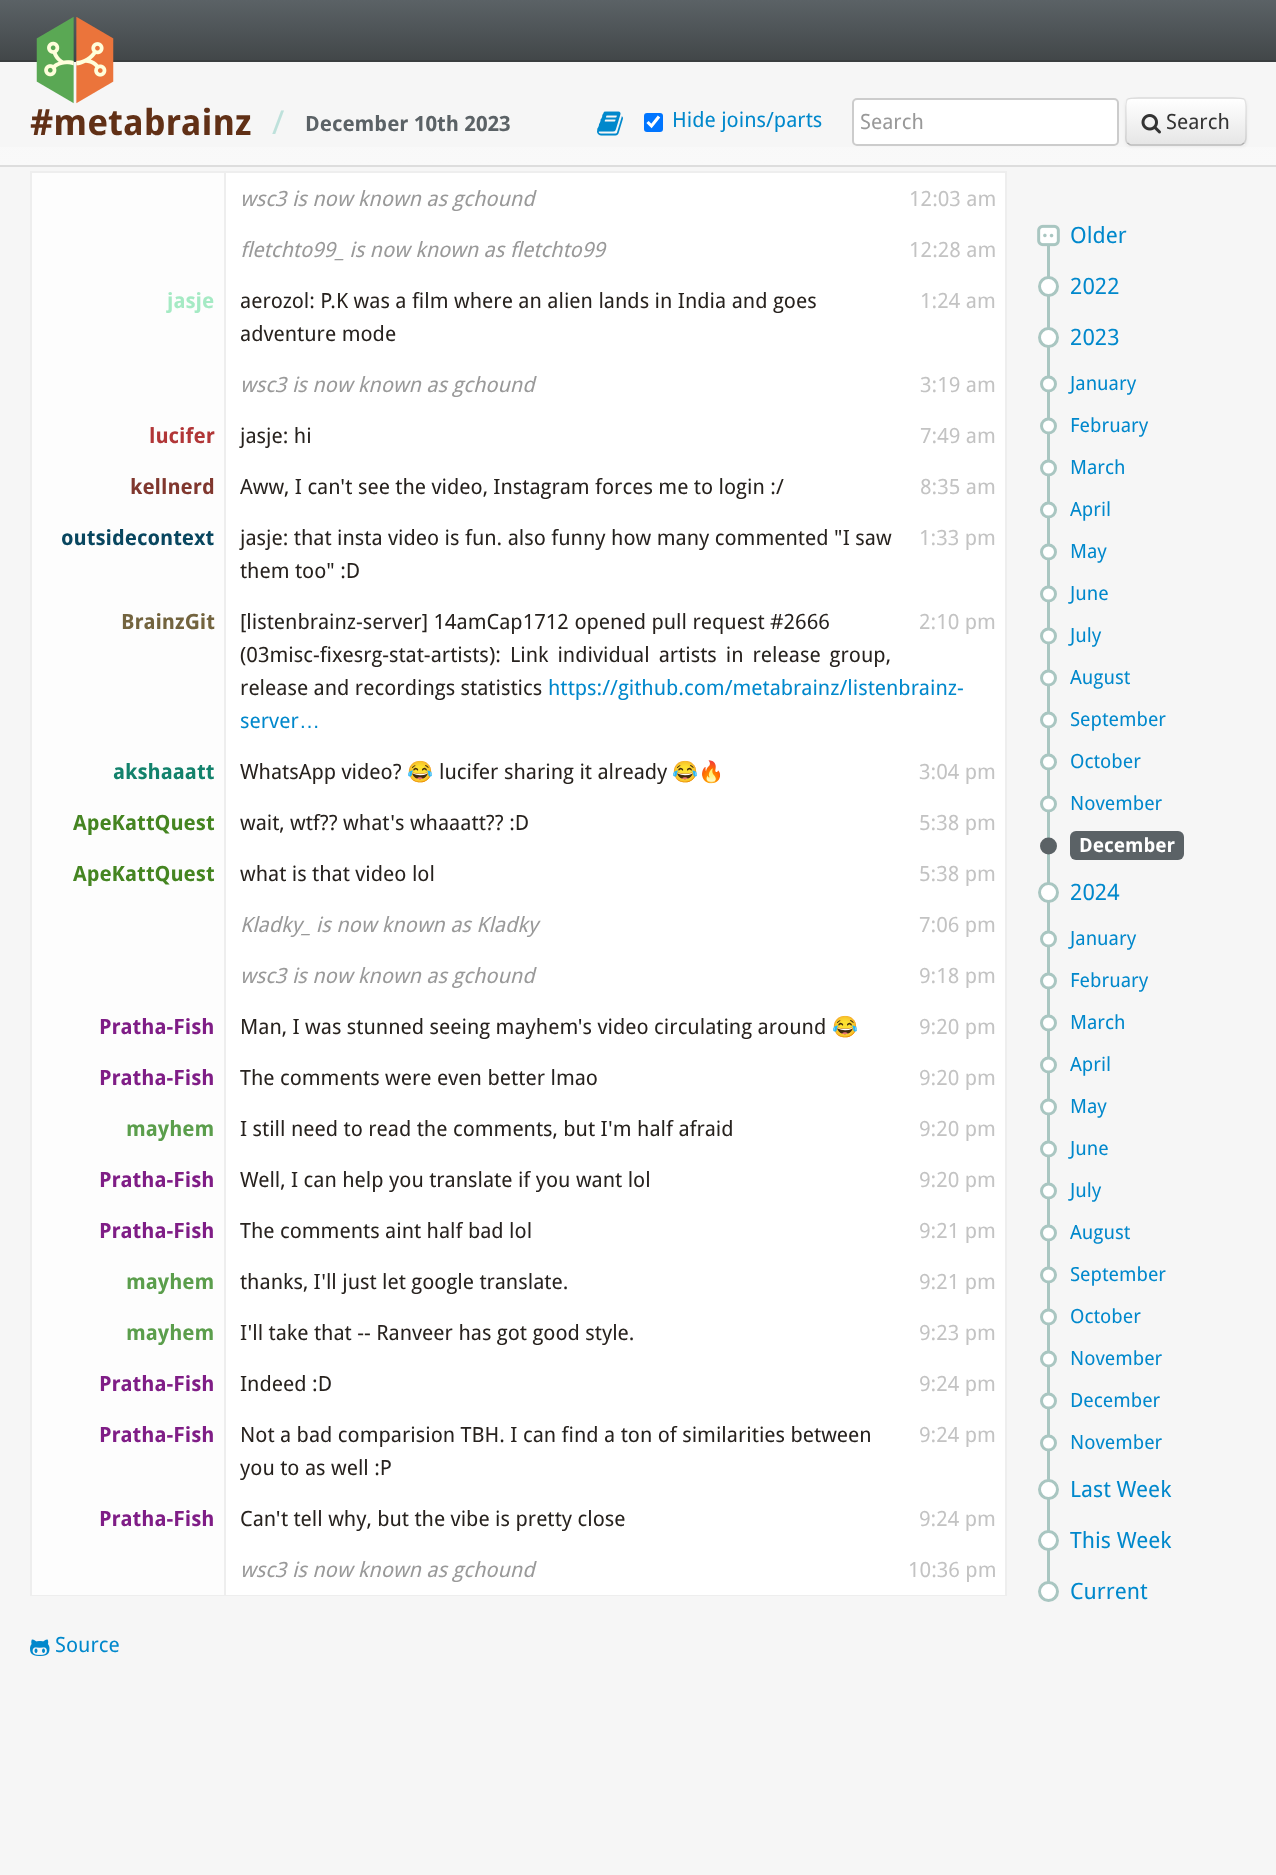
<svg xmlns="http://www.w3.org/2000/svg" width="1276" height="1875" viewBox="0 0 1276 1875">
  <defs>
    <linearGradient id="g1" gradientUnits="userSpaceOnUse" x1="638" y1="0" x2="638" y2="60"><stop offset="0" stop-color="rgb(91,98,102)"/><stop offset="1" stop-color="rgb(66,71,73)"/></linearGradient>
    <linearGradient id="g2" gradientUnits="userSpaceOnUse" x1="638" y1="60" x2="638" y2="165"><stop offset="0" stop-color="rgb(246,246,246)"/><stop offset="1" stop-color="rgb(249,249,249)"/></linearGradient>
    <clipPath id="clip1"><rect x="1125" y="98" width="122" height="48" rx="6"/></clipPath>
    <linearGradient id="g3" gradientUnits="userSpaceOnUse" x1="1186" y1="99" x2="1186" y2="144"><stop offset="0" stop-color="rgb(255,255,255)"/><stop offset="1" stop-color="rgb(230,230,230)"/></linearGradient>
  </defs>
  <rect width="100%" height="100%" fill="rgb(246,246,246)"/>
  <rect x="0" y="0" width="1276" height="60" fill="url(#g1)"/>
  <rect x="0" y="60" width="1276" height="2" fill="rgb(58,62,63)"/>
  <image x="36" y="16" width="78" height="88" href="pic1.png"/>
  <rect x="0" y="147" width="1276" height="18" fill="url(#g2)"/>
  <rect x="0" y="165" width="1276" height="2" fill="rgb(221,221,221)"/>
  <text x="30" y="135" font-family="Droid Sans" font-size="36" font-weight="bold" fill="rgb(97,48,22)">#metabrainz</text>
  <text x="272" y="134" font-family="Droid Sans" font-size="33" fill="rgb(190,225,219)">/</text>
  <text x="305" y="131" font-family="Droid Sans" font-size="21" font-weight="bold" fill="rgb(91,98,102)">December 10th 2023</text>
  <image x="597" y="111" width="26" height="25" href="pic2.png"/>
  <rect x="644" y="113" width="19" height="19" rx="3" fill="rgb(0,117,255)"/>
  <path d="M647.5 122L651.5 126L659 116.5" fill="none" stroke="rgb(255,255,255)" stroke-width="3.1"/>
  <text x="672" y="127" font-family="Droid Sans" font-size="21" fill="rgb(0,136,204)">Hide joins/parts</text>
  <rect x="853" y="99" width="265" height="46" rx="4" fill="rgb(255,255,255)" stroke="rgb(204,204,204)" stroke-width="2"/>
  <text x="860" y="129" font-family="Droid Sans" font-size="21" fill="rgb(153,153,153)">Search</text>
  <rect x="1125" y="99" width="122" height="48" rx="6" fill="rgba(0,0,0,0.05)" filter="blur(1.5px)"/>
  <rect x="1125" y="98" width="122" height="48" rx="6" fill="rgb(245,245,245)"/>
  <g clip-path="url(#clip1)">
    <rect x="1125" y="99" width="122" height="45" fill="url(#g3)"/>
  </g>
  <path d="M1244 143C1243 144 1242 145 1240.5 145H1131C1129.5 145 1128.5 144 1127.5 143" fill="none" stroke="rgba(0,0,0,0.25)" stroke-width="1.5"/>
  <path d="M1127.5 143C1125 141 1126 136.5 1126 133.5V121.5C1126 94.5 1121.5 98 1149 98H1222C1250 98 1246 94.5 1246 121.5V133.5C1246 136.5 1246.5 141 1244 143" fill="none" stroke="rgba(0,0,0,0.1)" stroke-width="1.5"/>
  <image x="1141" y="114" width="20" height="20" href="pic3.png"/>
  <text x="1166" y="129" font-family="Droid Sans" font-size="21" fill="rgb(51,51,51)">Search</text>
  <rect x="31" y="172" width="975" height="1423" fill="none" stroke="rgb(238,238,238)" stroke-width="2"/>
  <rect x="32" y="173" width="192" height="1422" fill="rgb(253,253,253)"/>
  <rect x="226" y="173" width="779" height="1422" fill="rgb(255,255,255)"/>
  <rect x="224" y="173" width="2" height="1422" fill="rgb(238,238,238)"/>
  <text x="240" y="206" font-family="Droid Sans" font-size="21" font-style="italic" fill="rgb(153,153,153)">wsc3 is now known as gchound</text>
  <text x="909" y="206" font-family="Droid Sans" font-size="21" fill="rgb(195,195,195)">12:03 am</text>
  <text x="240" y="257" font-family="Droid Sans" font-size="21" font-style="italic" fill="rgb(153,153,153)">fletchto99_ is now known as fletchto99</text>
  <text x="909" y="257" font-family="Droid Sans" font-size="21" fill="rgb(195,195,195)">12:28 am</text>
  <text x="167" y="308" font-family="Droid Sans" font-size="21" font-weight="bold" fill="rgb(165,234,196)">jasje</text>
  <g font-family="Droid Sans" font-size="21" fill="rgb(39,34,30)">
    <text>
      <tspan x="240" y="308">aerozol: P.K was a film where an alien lands in India and goes</tspan>
      <tspan x="240" y="341">adventure mode</tspan>
    </text>
  </g>
  <text x="920" y="308" font-family="Droid Sans" font-size="21" fill="rgb(195,195,195)">1:24 am</text>
  <text x="240" y="392" font-family="Droid Sans" font-size="21" font-style="italic" fill="rgb(153,153,153)">wsc3 is now known as gchound</text>
  <text x="920" y="392" font-family="Droid Sans" font-size="21" fill="rgb(195,195,195)">3:19 am</text>
  <text x="149" y="443" font-family="Droid Sans" font-size="21" font-weight="bold" fill="rgb(177,54,55)">lucifer</text>
  <text x="240" y="443" font-family="Droid Sans" font-size="21" fill="rgb(39,34,30)">jasje: hi</text>
  <text x="920" y="443" font-family="Droid Sans" font-size="21" fill="rgb(195,195,195)">7:49 am</text>
  <text x="130" y="494" font-family="Droid Sans" font-size="21" font-weight="bold" fill="rgb(128,55,46)">kellnerd</text>
  <text x="240" y="494" font-family="Droid Sans" font-size="21" fill="rgb(39,34,30)">Aww, I can't see the video, Instagram forces me to login :/</text>
  <text x="920" y="494" font-family="Droid Sans" font-size="21" fill="rgb(195,195,195)">8:35 am</text>
  <text x="61" y="545" font-family="Droid Sans" font-size="21" font-weight="bold" fill="rgb(8,70,95)">outsidecontext</text>
  <g font-family="Droid Sans" font-size="21" fill="rgb(39,34,30)">
    <text>
      <tspan x="240" y="545">jasje: that insta video is fun. also funny how many commented "I saw</tspan>
      <tspan x="240" y="578">them too" :D</tspan>
    </text>
  </g>
  <text x="919" y="545" font-family="Droid Sans" font-size="21" fill="rgb(195,195,195)">1:33 pm</text>
  <text x="121" y="629" font-family="Droid Sans" font-size="21" font-weight="bold" fill="rgb(115,100,63)">BrainzGit</text>
  <g font-family="Droid Sans" font-size="21" fill="rgb(39,34,30)">
    <text>
      <tspan x="240" y="629">[listenbrainz-server] 14amCap1712 opened pull request #2666</tspan>
      <tspan x="240" y="662">(03misc-fixesrg-stat-artists</tspan>
    </text>
    <text x="489" y="662" word-spacing="3.5">): Link individual artists in release group,</text>
    <text x="240" y="695">release and recordings statistics</text>
  </g>
  <g font-family="Droid Sans" font-size="21" fill="rgb(0,136,204)">
    <text x="548" y="695">https://github.com/metabrainz/listenbrainz-</text>
    <text x="240" y="728">server</text>
  </g>
  <text x="299" y="728" font-family="Liberation Sans" font-size="21" fill="rgb(0,136,204)">…</text>
  <text x="919" y="629" font-family="Droid Sans" font-size="21" fill="rgb(195,195,195)">2:10 pm</text>
  <text x="113" y="779" font-family="Droid Sans" font-size="21" font-weight="bold" fill="rgb(19,130,108)">akshaaatt</text>
  <text x="240" y="779" font-family="Droid Sans" font-size="21" fill="rgb(39,34,30)">WhatsApp video?</text>
  <text x="407" y="779" font-family="Noto Color Emoji" font-size="21" fill="rgb(39,34,30)">😂</text>
  <text x="439" y="779" font-family="Droid Sans" font-size="21" fill="rgb(39,34,30)">lucifer sharing it already</text>
  <text x="672" y="779" font-family="Noto Color Emoji" font-size="21" fill="rgb(39,34,30)">😂🔥</text>
  <text x="919" y="779" font-family="Droid Sans" font-size="21" fill="rgb(195,195,195)">3:04 pm</text>
  <text x="73" y="830" font-family="Droid Sans" font-size="21" font-weight="bold" fill="rgb(69,133,33)">ApeKattQuest</text>
  <text x="240" y="830" font-family="Droid Sans" font-size="21" fill="rgb(39,34,30)">wait, wtf?? what's whaaatt?? :D</text>
  <text x="919" y="830" font-family="Droid Sans" font-size="21" fill="rgb(195,195,195)">5:38 pm</text>
  <text x="73" y="881" font-family="Droid Sans" font-size="21" font-weight="bold" fill="rgb(69,133,33)">ApeKattQuest</text>
  <text x="240" y="881" font-family="Droid Sans" font-size="21" fill="rgb(39,34,30)">what is that video lol</text>
  <text x="919" y="881" font-family="Droid Sans" font-size="21" fill="rgb(195,195,195)">5:38 pm</text>
  <text x="240" y="932" font-family="Droid Sans" font-size="21" font-style="italic" fill="rgb(153,153,153)">Kladky_ is now known as Kladky</text>
  <text x="919" y="932" font-family="Droid Sans" font-size="21" fill="rgb(195,195,195)">7:06 pm</text>
  <text x="240" y="983" font-family="Droid Sans" font-size="21" font-style="italic" fill="rgb(153,153,153)">wsc3 is now known as gchound</text>
  <text x="919" y="983" font-family="Droid Sans" font-size="21" fill="rgb(195,195,195)">9:18 pm</text>
  <text x="99" y="1034" font-family="Droid Sans" font-size="21" font-weight="bold" fill="rgb(127,29,134)">Pratha-Fish</text>
  <text x="240" y="1034" font-family="Droid Sans" font-size="21" fill="rgb(39,34,30)">Man, I was stunned seeing mayhem's video circulating around</text>
  <text x="832" y="1034" font-family="Noto Color Emoji" font-size="21" fill="rgb(39,34,30)">😂</text>
  <text x="919" y="1034" font-family="Droid Sans" font-size="21" fill="rgb(195,195,195)">9:20 pm</text>
  <text x="99" y="1085" font-family="Droid Sans" font-size="21" font-weight="bold" fill="rgb(127,29,134)">Pratha-Fish</text>
  <text x="240" y="1085" font-family="Droid Sans" font-size="21" fill="rgb(39,34,30)">The comments were even better lmao</text>
  <text x="919" y="1085" font-family="Droid Sans" font-size="21" fill="rgb(195,195,195)">9:20 pm</text>
  <text x="126" y="1136" font-family="Droid Sans" font-size="21" font-weight="bold" fill="rgb(91,158,76)">mayhem</text>
  <text x="240" y="1136" font-family="Droid Sans" font-size="21" fill="rgb(39,34,30)">I still need to read the comments, but I'm half afraid</text>
  <text x="919" y="1136" font-family="Droid Sans" font-size="21" fill="rgb(195,195,195)">9:20 pm</text>
  <text x="99" y="1187" font-family="Droid Sans" font-size="21" font-weight="bold" fill="rgb(127,29,134)">Pratha-Fish</text>
  <text x="240" y="1187" font-family="Droid Sans" font-size="21" fill="rgb(39,34,30)">Well, I can help you translate if you want lol</text>
  <text x="919" y="1187" font-family="Droid Sans" font-size="21" fill="rgb(195,195,195)">9:20 pm</text>
  <text x="99" y="1238" font-family="Droid Sans" font-size="21" font-weight="bold" fill="rgb(127,29,134)">Pratha-Fish</text>
  <text x="240" y="1238" font-family="Droid Sans" font-size="21" fill="rgb(39,34,30)">The comments aint half bad lol</text>
  <text x="919" y="1238" font-family="Droid Sans" font-size="21" fill="rgb(195,195,195)">9:21 pm</text>
  <text x="126" y="1289" font-family="Droid Sans" font-size="21" font-weight="bold" fill="rgb(91,158,76)">mayhem</text>
  <text x="240" y="1289" font-family="Droid Sans" font-size="21" fill="rgb(39,34,30)">thanks, I'll just let google translate.</text>
  <text x="919" y="1289" font-family="Droid Sans" font-size="21" fill="rgb(195,195,195)">9:21 pm</text>
  <text x="126" y="1340" font-family="Droid Sans" font-size="21" font-weight="bold" fill="rgb(91,158,76)">mayhem</text>
  <text x="240" y="1340" font-family="Droid Sans" font-size="21" fill="rgb(39,34,30)">I'll take that -- Ranveer has got good style.</text>
  <text x="919" y="1340" font-family="Droid Sans" font-size="21" fill="rgb(195,195,195)">9:23 pm</text>
  <text x="99" y="1391" font-family="Droid Sans" font-size="21" font-weight="bold" fill="rgb(127,29,134)">Pratha-Fish</text>
  <text x="240" y="1391" font-family="Droid Sans" font-size="21" fill="rgb(39,34,30)">Indeed :D</text>
  <text x="919" y="1391" font-family="Droid Sans" font-size="21" fill="rgb(195,195,195)">9:24 pm</text>
  <text x="99" y="1442" font-family="Droid Sans" font-size="21" font-weight="bold" fill="rgb(127,29,134)">Pratha-Fish</text>
  <g font-family="Droid Sans" font-size="21" fill="rgb(39,34,30)">
    <text>
      <tspan x="240" y="1442">Not a bad comparision TBH. I can find a ton of similarities between</tspan>
      <tspan x="240" y="1475">you to as well :P</tspan>
    </text>
  </g>
  <text x="919" y="1442" font-family="Droid Sans" font-size="21" fill="rgb(195,195,195)">9:24 pm</text>
  <text x="99" y="1526" font-family="Droid Sans" font-size="21" font-weight="bold" fill="rgb(127,29,134)">Pratha-Fish</text>
  <text x="240" y="1526" font-family="Droid Sans" font-size="21" fill="rgb(39,34,30)">Can't tell why, but the vibe is pretty close</text>
  <text x="919" y="1526" font-family="Droid Sans" font-size="21" fill="rgb(195,195,195)">9:24 pm</text>
  <text x="240" y="1577" font-family="Droid Sans" font-size="21" font-style="italic" fill="rgb(153,153,153)">wsc3 is now known as gchound</text>
  <text x="908" y="1577" font-family="Droid Sans" font-size="21" fill="rgb(195,195,195)">10:36 pm</text>
  <rect x="1047" y="246" width="3" height="1336" fill="rgb(169,198,193)"/>
  <image x="1037" y="224" width="23" height="23" href="pic4.png"/>
  <text x="1070" y="243" font-family="Droid Sans" font-size="22.5" fill="rgb(0,136,204)">Older</text>
  <circle cx="1048.5" cy="286.5" r="9" fill="rgb(255,255,255)" stroke="rgb(169,198,193)" stroke-width="3"/>
  <text x="1070" y="294" font-family="Droid Sans" font-size="22.5" fill="rgb(0,136,204)">2022</text>
  <circle cx="1048.5" cy="337.5" r="9" fill="rgb(255,255,255)" stroke="rgb(169,198,193)" stroke-width="3"/>
  <text x="1070" y="345" font-family="Droid Sans" font-size="22.5" fill="rgb(0,136,204)">2023</text>
  <circle cx="1048.5" cy="384" r="7" fill="rgb(255,255,255)" stroke="rgb(169,198,193)" stroke-width="3"/>
  <text x="1070" y="390" font-family="Droid Sans" font-size="19.5" fill="rgb(0,136,204)">January</text>
  <circle cx="1048.5" cy="426" r="7" fill="rgb(255,255,255)" stroke="rgb(169,198,193)" stroke-width="3"/>
  <text x="1070" y="432" font-family="Droid Sans" font-size="19.5" fill="rgb(0,136,204)">February</text>
  <circle cx="1048.5" cy="468" r="7" fill="rgb(255,255,255)" stroke="rgb(169,198,193)" stroke-width="3"/>
  <text x="1070" y="474" font-family="Droid Sans" font-size="19.5" fill="rgb(0,136,204)">March</text>
  <circle cx="1048.5" cy="510" r="7" fill="rgb(255,255,255)" stroke="rgb(169,198,193)" stroke-width="3"/>
  <text x="1070" y="516" font-family="Droid Sans" font-size="19.5" fill="rgb(0,136,204)">April</text>
  <circle cx="1048.5" cy="552" r="7" fill="rgb(255,255,255)" stroke="rgb(169,198,193)" stroke-width="3"/>
  <text x="1070" y="558" font-family="Droid Sans" font-size="19.5" fill="rgb(0,136,204)">May</text>
  <circle cx="1048.5" cy="594" r="7" fill="rgb(255,255,255)" stroke="rgb(169,198,193)" stroke-width="3"/>
  <text x="1070" y="600" font-family="Droid Sans" font-size="19.5" fill="rgb(0,136,204)">June</text>
  <circle cx="1048.5" cy="636" r="7" fill="rgb(255,255,255)" stroke="rgb(169,198,193)" stroke-width="3"/>
  <text x="1070" y="642" font-family="Droid Sans" font-size="19.5" fill="rgb(0,136,204)">July</text>
  <circle cx="1048.5" cy="678" r="7" fill="rgb(255,255,255)" stroke="rgb(169,198,193)" stroke-width="3"/>
  <text x="1070" y="684" font-family="Droid Sans" font-size="19.5" fill="rgb(0,136,204)">August</text>
  <circle cx="1048.5" cy="720" r="7" fill="rgb(255,255,255)" stroke="rgb(169,198,193)" stroke-width="3"/>
  <text x="1070" y="726" font-family="Droid Sans" font-size="19.5" fill="rgb(0,136,204)">September</text>
  <circle cx="1048.5" cy="762" r="7" fill="rgb(255,255,255)" stroke="rgb(169,198,193)" stroke-width="3"/>
  <text x="1070" y="768" font-family="Droid Sans" font-size="19.5" fill="rgb(0,136,204)">October</text>
  <circle cx="1048.5" cy="804" r="7" fill="rgb(255,255,255)" stroke="rgb(169,198,193)" stroke-width="3"/>
  <text x="1070" y="810" font-family="Droid Sans" font-size="19.5" fill="rgb(0,136,204)">November</text>
  <circle cx="1048.5" cy="846" r="7" fill="rgb(91,98,102)" stroke="rgb(91,98,102)" stroke-width="3"/>
  <rect x="1070" y="831" width="114" height="29" rx="6" fill="rgb(91,98,102)"/>
  <text x="1079" y="852" font-family="Droid Sans" font-size="19.5" font-weight="bold" fill="rgb(255,255,255)">December</text>
  <circle cx="1048.5" cy="892.5" r="9" fill="rgb(255,255,255)" stroke="rgb(169,198,193)" stroke-width="3"/>
  <text x="1070" y="900" font-family="Droid Sans" font-size="22.5" fill="rgb(0,136,204)">2024</text>
  <circle cx="1048.5" cy="939" r="7" fill="rgb(255,255,255)" stroke="rgb(169,198,193)" stroke-width="3"/>
  <text x="1070" y="945" font-family="Droid Sans" font-size="19.5" fill="rgb(0,136,204)">January</text>
  <circle cx="1048.5" cy="981" r="7" fill="rgb(255,255,255)" stroke="rgb(169,198,193)" stroke-width="3"/>
  <text x="1070" y="987" font-family="Droid Sans" font-size="19.5" fill="rgb(0,136,204)">February</text>
  <circle cx="1048.5" cy="1023" r="7" fill="rgb(255,255,255)" stroke="rgb(169,198,193)" stroke-width="3"/>
  <text x="1070" y="1029" font-family="Droid Sans" font-size="19.5" fill="rgb(0,136,204)">March</text>
  <circle cx="1048.5" cy="1065" r="7" fill="rgb(255,255,255)" stroke="rgb(169,198,193)" stroke-width="3"/>
  <text x="1070" y="1071" font-family="Droid Sans" font-size="19.5" fill="rgb(0,136,204)">April</text>
  <circle cx="1048.5" cy="1107" r="7" fill="rgb(255,255,255)" stroke="rgb(169,198,193)" stroke-width="3"/>
  <text x="1070" y="1113" font-family="Droid Sans" font-size="19.5" fill="rgb(0,136,204)">May</text>
  <circle cx="1048.5" cy="1149" r="7" fill="rgb(255,255,255)" stroke="rgb(169,198,193)" stroke-width="3"/>
  <text x="1070" y="1155" font-family="Droid Sans" font-size="19.5" fill="rgb(0,136,204)">June</text>
  <circle cx="1048.5" cy="1191" r="7" fill="rgb(255,255,255)" stroke="rgb(169,198,193)" stroke-width="3"/>
  <text x="1070" y="1197" font-family="Droid Sans" font-size="19.5" fill="rgb(0,136,204)">July</text>
  <circle cx="1048.5" cy="1233" r="7" fill="rgb(255,255,255)" stroke="rgb(169,198,193)" stroke-width="3"/>
  <text x="1070" y="1239" font-family="Droid Sans" font-size="19.5" fill="rgb(0,136,204)">August</text>
  <circle cx="1048.5" cy="1275" r="7" fill="rgb(255,255,255)" stroke="rgb(169,198,193)" stroke-width="3"/>
  <text x="1070" y="1281" font-family="Droid Sans" font-size="19.5" fill="rgb(0,136,204)">September</text>
  <circle cx="1048.5" cy="1317" r="7" fill="rgb(255,255,255)" stroke="rgb(169,198,193)" stroke-width="3"/>
  <text x="1070" y="1323" font-family="Droid Sans" font-size="19.5" fill="rgb(0,136,204)">October</text>
  <circle cx="1048.5" cy="1359" r="7" fill="rgb(255,255,255)" stroke="rgb(169,198,193)" stroke-width="3"/>
  <text x="1070" y="1365" font-family="Droid Sans" font-size="19.5" fill="rgb(0,136,204)">November</text>
  <circle cx="1048.5" cy="1401" r="7" fill="rgb(255,255,255)" stroke="rgb(169,198,193)" stroke-width="3"/>
  <text x="1070" y="1407" font-family="Droid Sans" font-size="19.5" fill="rgb(0,136,204)">December</text>
  <circle cx="1048.5" cy="1443" r="7" fill="rgb(255,255,255)" stroke="rgb(169,198,193)" stroke-width="3"/>
  <text x="1070" y="1449" font-family="Droid Sans" font-size="19.5" fill="rgb(0,136,204)">November</text>
  <circle cx="1048.5" cy="1489.5" r="9" fill="rgb(255,255,255)" stroke="rgb(169,198,193)" stroke-width="3"/>
  <text x="1070" y="1497" font-family="Droid Sans" font-size="22.5" fill="rgb(0,136,204)">Last Week</text>
  <circle cx="1048.5" cy="1540.5" r="9" fill="rgb(255,255,255)" stroke="rgb(169,198,193)" stroke-width="3"/>
  <text x="1070" y="1548" font-family="Droid Sans" font-size="22.5" fill="rgb(0,136,204)">This Week</text>
  <circle cx="1048.5" cy="1591.5" r="9" fill="rgb(255,255,255)" stroke="rgb(169,198,193)" stroke-width="3"/>
  <text x="1070" y="1599" font-family="Droid Sans" font-size="22.5" fill="rgb(0,136,204)">Current</text>
  <image x="30" y="1639" width="20" height="17" href="pic5.png"/>
  <text x="55" y="1652" font-family="Droid Sans" font-size="21" fill="rgb(0,136,204)">Source</text>
</svg>
